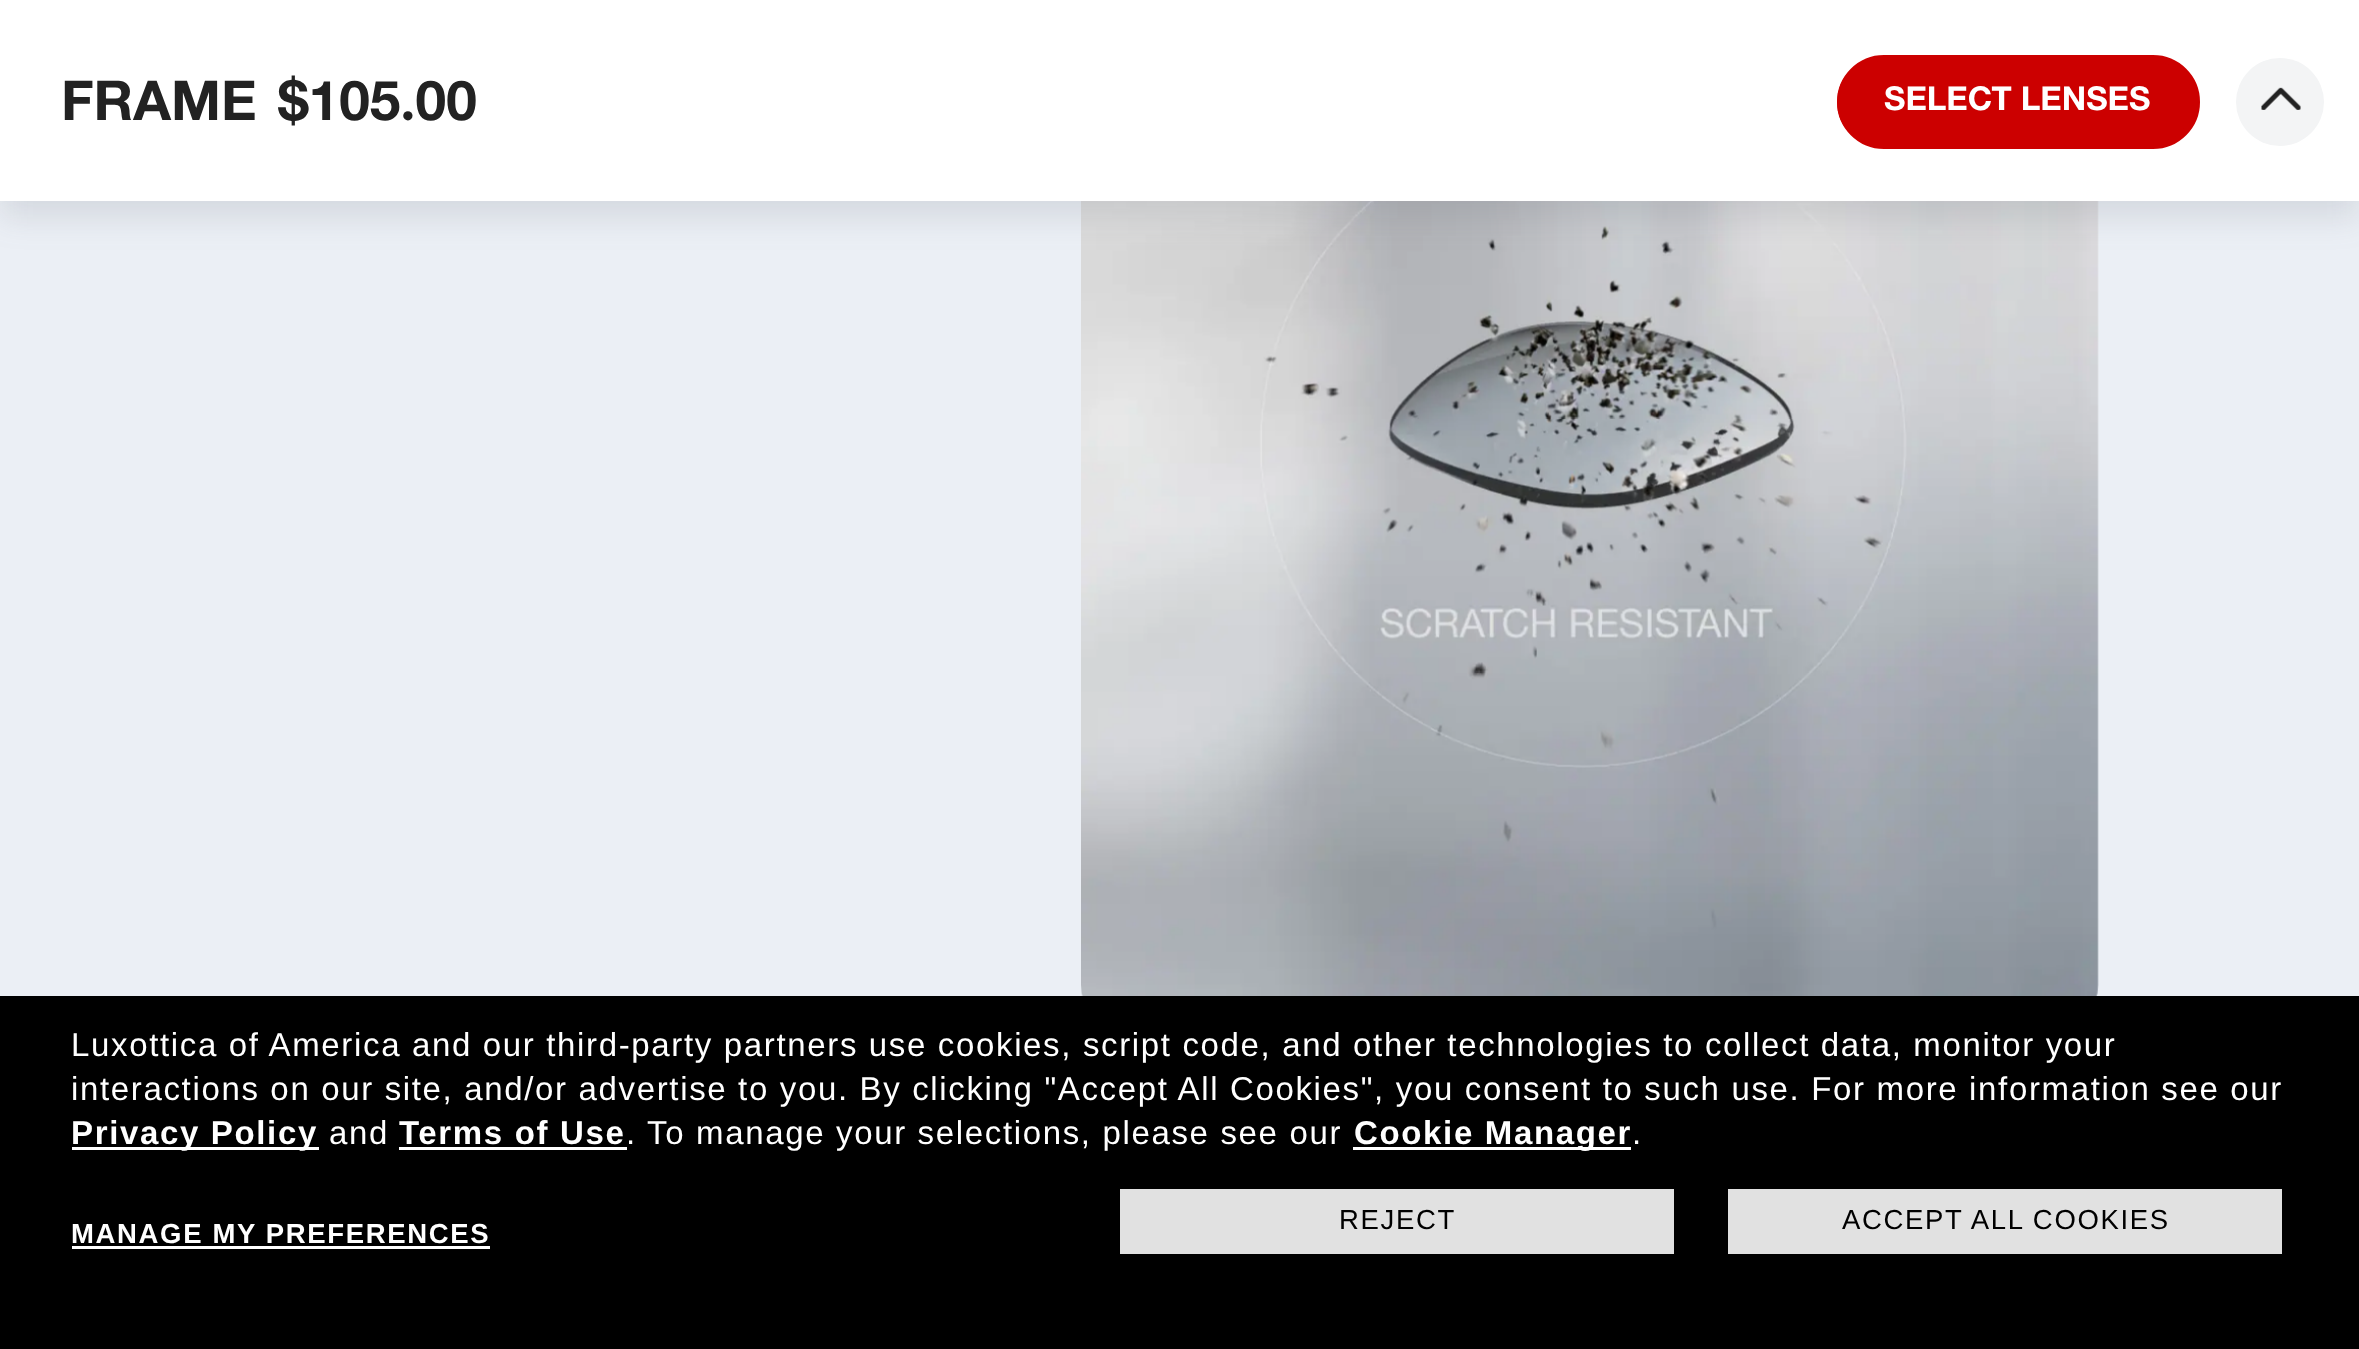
<svg xmlns="http://www.w3.org/2000/svg" width="2359" height="1349" viewBox="0 0 2359 1349">
  <rect width="100%" height="100%" fill="rgb(235,239,245)"/>
  <image x="1081" y="201" width="1018" height="795" href="pic2.png"/>
  <rect x="0" y="17" width="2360" height="200" fill="rgba(96,97,112,0.16)" filter="blur(16px)"/>
  <rect x="0" y="0" width="2359" height="201" fill="rgb(255,255,255)"/>
  <g font-family="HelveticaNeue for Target" font-size="55" font-weight="bold" fill="rgb(34,34,34)">
    <text x="61" y="120">FRAME</text>
    <text x="278" y="120">$105.00</text>
  </g>
  <rect x="1838.5" y="59.5" width="357" height="85" rx="42.5" fill="rgb(204,0,0)" stroke="rgb(204,0,0)" stroke-width="3"/>
  <rect x="1840" y="58" width="357" height="88" rx="44" fill="none" stroke="rgb(204,0,0)" stroke-width="6"/>
  <text x="1884" y="110" font-family="HelveticaNeue for Target" font-size="33" font-weight="bold" fill="rgb(255,255,255)">SELECT LENSES</text>
  <circle cx="2280" cy="102" r="44" fill="rgb(243,244,245)"/>
  <image x="2261" y="87" width="40" height="23" href="pic1.png"/>
  <rect x="0" y="996" width="2359" height="353" fill="rgb(0,0,0)"/>
  <g font-family="Liberation Sans" font-size="33" letter-spacing="1.65" fill="rgb(255,255,255)">
    <text>
      <tspan x="71" y="1056">Luxottica of America and our third-party partners use cookies, script code, and other technologies to collect data, monitor your</tspan>
      <tspan x="71" y="1100">interactions on our site, and/or advertise to you. By clicking "Accept All Cookies", you consent to such use. For more information see our</tspan>
    </text>
  </g>
  <rect x="72" y="1147" width="247" height="3" fill="rgb(255,255,255)"/>
  <text x="71" y="1144" font-family="Liberation Sans" font-size="33" font-weight="bold" letter-spacing="1.65" fill="rgb(255,255,255)">Privacy Policy</text>
  <text x="329" y="1144" font-family="Liberation Sans" font-size="33" letter-spacing="1.65" fill="rgb(255,255,255)">and</text>
  <text x="399" y="1144" font-family="Liberation Sans" font-size="33" font-weight="bold" letter-spacing="1.65" fill="rgb(255,255,255)">Terms of Use</text>
  <text x="626" y="1144" font-family="Liberation Sans" font-size="33" letter-spacing="1.65" fill="rgb(255,255,255)">. To manage your selections, please see our</text>
  <rect x="399" y="1147" width="228" height="3" fill="rgb(255,255,255)"/>
  <rect x="1353" y="1147" width="278" height="3" fill="rgb(255,255,255)"/>
  <text x="1354" y="1144" font-family="Liberation Sans" font-size="33" font-weight="bold" letter-spacing="1.65" fill="rgb(255,255,255)">Cookie Manager</text>
  <text x="1632" y="1144" font-family="Liberation Sans" font-size="33" letter-spacing="1.65" fill="rgb(255,255,255)">.</text>
  <rect x="1120" y="1189" width="554" height="65" fill="rgb(225,225,225)"/>
  <text x="1339" y="1229" font-family="Liberation Sans" font-size="27.5" letter-spacing="1.65" fill="rgb(0,0,0)">REJECT</text>
  <rect x="1728" y="1189" width="554" height="65" fill="rgb(225,225,225)"/>
  <text x="1842" y="1229" font-family="Liberation Sans" font-size="27.5" letter-spacing="1.65" fill="rgb(0,0,0)">ACCEPT ALL COOKIES</text>
  <text x="71" y="1243" font-family="Liberation Sans" font-size="27.5" font-weight="bold" letter-spacing="1.65" fill="rgb(255,255,255)">MANAGE MY PREFERENCES</text>
  <rect x="72" y="1246" width="418" height="3" fill="rgb(255,255,255)"/>
</svg>
